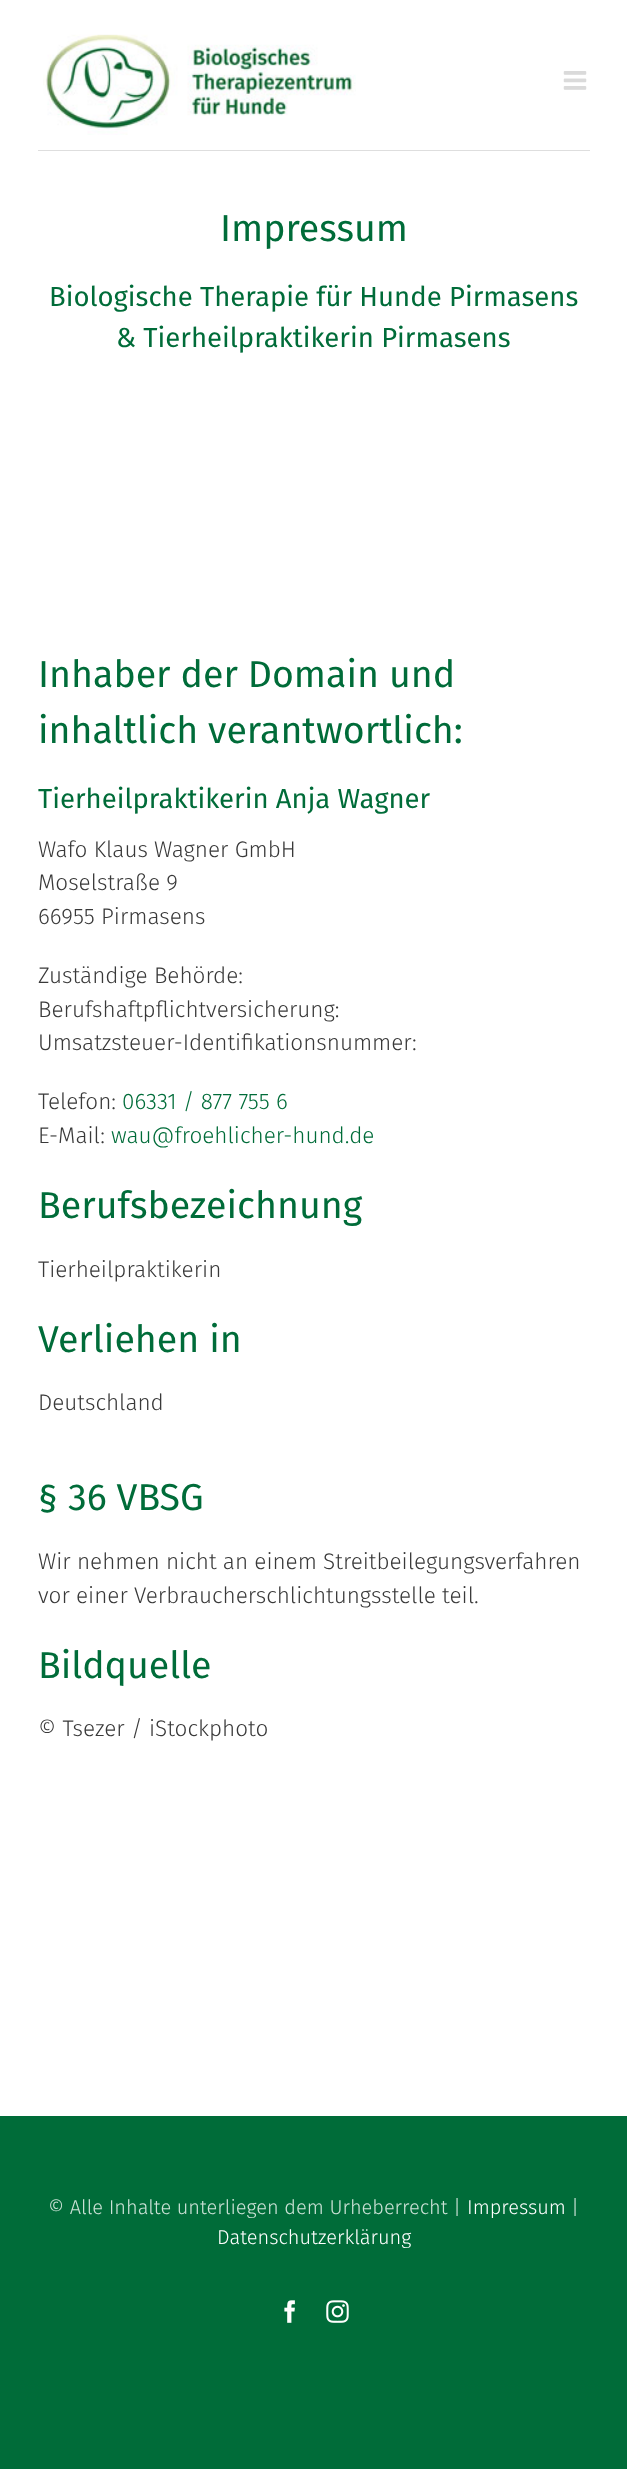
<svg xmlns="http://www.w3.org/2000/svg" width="627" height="2469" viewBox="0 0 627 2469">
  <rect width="100%" height="100%" fill="rgb(255,255,255)"/>
  <rect x="38" y="150" width="552" height="1" fill="rgb(222,222,222)"/>
  <image x="43" y="34" width="313" height="101" href="pic1.png"/>
  <image x="563" y="71" width="24" height="19" href="pic2.png"/>
  <text x="220" y="241" font-family="Fira Sans" font-size="37.5" fill="rgb(0,108,57)">Impressum</text>
  <g font-family="Fira Sans" font-size="27.5" fill="rgb(0,108,57)">
    <text x="49" y="306">Biologische Therapie für Hunde Pirmasens</text>
    <text x="116" y="347">&amp; Tierheilpraktikerin Pirmasens</text>
  </g>
  <g font-family="Fira Sans" font-size="37.5" fill="rgb(0,108,57)">
    <text>
      <tspan x="38" y="687">Inhaber der Domain und</tspan>
      <tspan x="38" y="743">inhaltlich verantwortlich:</tspan>
    </text>
  </g>
  <text x="38" y="808" font-family="Fira Sans" font-size="27.5" fill="rgb(0,108,57)">Tierheilpraktikerin Anja Wagner</text>
  <g font-family="Fira Sans" font-size="22.5" font-weight="300" fill="rgb(57,57,57)">
    <text>
      <tspan x="38" y="857">Wafo Klaus Wagner GmbH</tspan>
      <tspan x="38" y="890">Moselstraße 9</tspan>
      <tspan x="38" y="924">66955 Pirmasens</tspan>
    </text>
    <text>
      <tspan x="38" y="983">Zuständige Behörde:</tspan>
      <tspan x="38" y="1017">Berufshaftpflichtversicherung:</tspan>
      <tspan x="38" y="1050">Umsatzsteuer-Identifikationsnummer:</tspan>
    </text>
    <text x="38" y="1109">Telefon:</text>
  </g>
  <text x="122" y="1109" font-family="Fira Sans" font-size="22.5" font-weight="300" fill="rgb(0,108,57)">06331 / 877 755 6</text>
  <text x="38" y="1143" font-family="Fira Sans" font-size="22.5" font-weight="300" fill="rgb(57,57,57)">E-Mail:</text>
  <text x="111" y="1143" font-family="Fira Sans" font-size="22.5" font-weight="300" fill="rgb(0,108,57)">wau@froehlicher-hund.de</text>
  <text x="38" y="1218" font-family="Fira Sans" font-size="37.5" fill="rgb(0,108,57)">Berufsbezeichnung</text>
  <text x="38" y="1277" font-family="Fira Sans" font-size="22.5" font-weight="300" fill="rgb(57,57,57)">Tierheilpraktikerin</text>
  <text x="38" y="1352" font-family="Fira Sans" font-size="37.5" fill="rgb(0,108,57)">Verliehen in</text>
  <text x="38" y="1410" font-family="Fira Sans" font-size="22.5" font-weight="300" fill="rgb(57,57,57)">Deutschland</text>
  <text x="38" y="1510" font-family="Fira Sans" font-size="37.5" fill="rgb(0,108,57)">§ 36 VBSG</text>
  <g font-family="Fira Sans" font-size="22.5" font-weight="300" fill="rgb(57,57,57)">
    <text>
      <tspan x="38" y="1569">Wir nehmen nicht an einem Streitbeilegungsverfahren</tspan>
      <tspan x="38" y="1603">vor einer Verbraucherschlichtungsstelle teil.</tspan>
    </text>
  </g>
  <text x="38" y="1678" font-family="Fira Sans" font-size="37.5" fill="rgb(0,108,57)">Bildquelle</text>
  <text x="38" y="1736" font-family="Fira Sans" font-size="22.5" font-weight="300" fill="rgb(57,57,57)">© Tsezer / iStockphoto</text>
  <rect x="0" y="2116" width="627" height="353" fill="rgb(0,108,57)"/>
  <text x="48" y="2214" font-family="Fira Sans" font-size="20" font-weight="300" fill="rgb(204,226,215)">© Alle Inhalte unterliegen dem Urheberrecht |</text>
  <text x="467" y="2214" font-family="Fira Sans" font-size="20" font-weight="300" fill="rgb(255,255,255)">Impressum</text>
  <text x="571" y="2214" font-family="Fira Sans" font-size="20" font-weight="300" fill="rgb(204,226,215)">|</text>
  <text x="217" y="2244" font-family="Fira Sans" font-size="20" font-weight="300" fill="rgb(255,255,255)">Datenschutzerklärung</text>
  <image x="284" y="2300" width="11" height="23" href="pic3.png"/>
  <image x="326" y="2300" width="23" height="23" href="pic4.png"/>
</svg>
